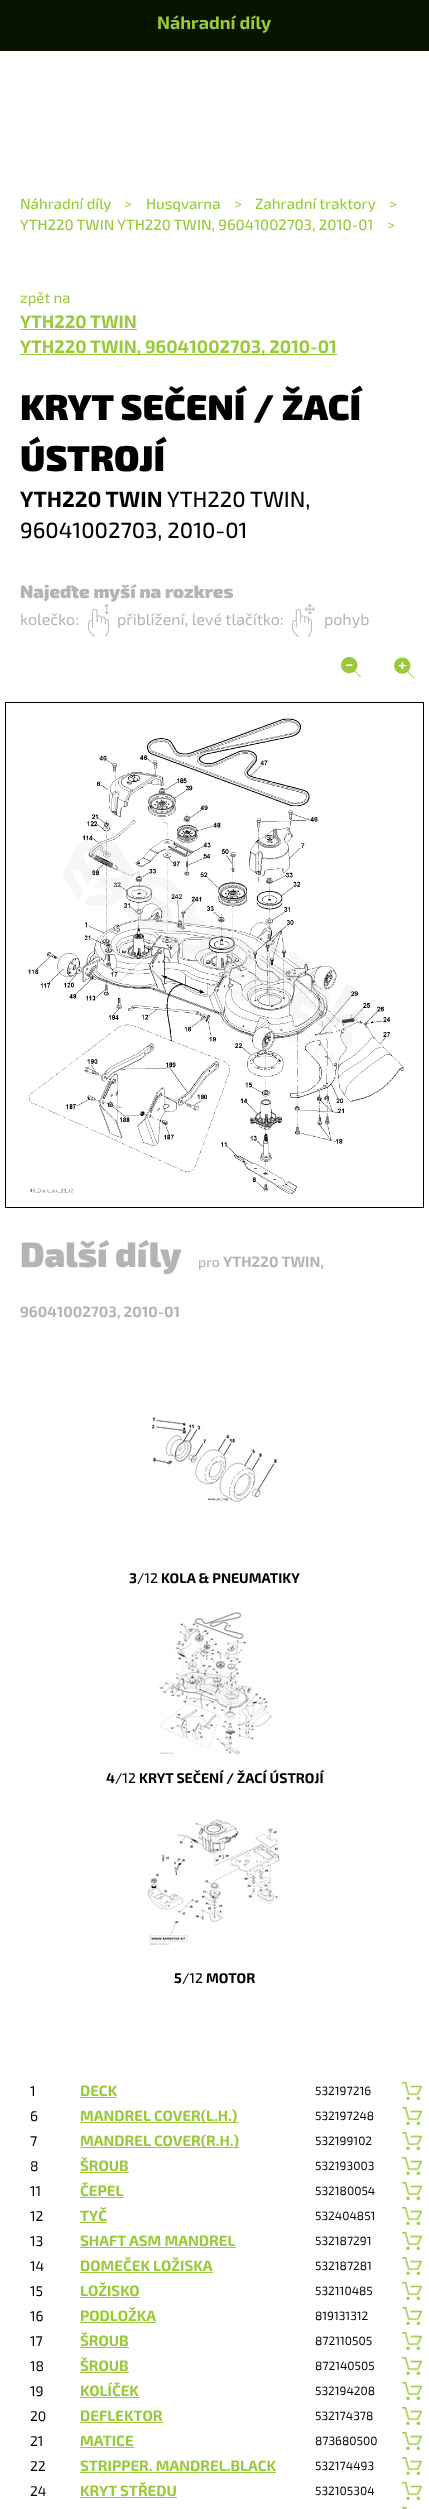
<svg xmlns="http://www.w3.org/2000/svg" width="429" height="2509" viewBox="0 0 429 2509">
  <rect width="100%" height="100%" fill="rgb(255,255,255)"/>
  <rect x="1" y="0" width="427" height="50" fill="rgb(8,19,0)"/>
  <path d="M429-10V51L428 50V-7Z" fill="rgb(8,19,0)"/>
  <rect x="0" y="50" width="429" height="1" fill="rgb(8,19,0)"/>
  <path d="M0 51V-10L1-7V50Z" fill="rgb(8,19,0)"/>
  <text x="157" y="29" font-family="'Exo 2'" font-size="18" font-weight="bold" fill="rgb(154,202,60)">Náhradní díly</text>
  <text x="20" y="209" font-family="'Exo 2'" font-size="15" font-weight="500" fill="rgb(154,202,60)">Náhradní díly</text>
  <text x="124" y="209" font-family="'Exo 2'" font-size="15" fill="rgb(154,202,60)">&gt;</text>
  <text x="146" y="209" font-family="'Exo 2'" font-size="15" font-weight="500" fill="rgb(154,202,60)">Husqvarna</text>
  <text x="234" y="209" font-family="'Exo 2'" font-size="15" fill="rgb(154,202,60)">&gt;</text>
  <text x="255" y="209" font-family="'Exo 2'" font-size="15" font-weight="500" fill="rgb(154,202,60)">Zahradní traktory</text>
  <text x="389" y="209" font-family="'Exo 2'" font-size="15" fill="rgb(154,202,60)">&gt;</text>
  <text x="20" y="230" font-family="'Exo 2'" font-size="15" font-weight="500" fill="rgb(154,202,60)">YTH220 TWIN YTH220 TWIN, 96041002703, 2010-01</text>
  <g font-family="'Exo 2'" font-size="15" fill="rgb(154,202,60)">
    <text x="387" y="230">&gt;</text>
    <text x="20" y="303">zpět na</text>
  </g>
  <text x="20" y="328" font-family="'Exo 2'" font-size="18" font-weight="bold" fill="rgb(154,202,60)">YTH220 TWIN</text>
  <rect x="20" y="329" width="117" height="1" fill="rgb(154,202,60)"/>
  <rect x="20" y="354" width="317" height="1" fill="rgb(154,202,60)"/>
  <text x="20" y="353" font-family="'Exo 2'" font-size="18" font-weight="bold" fill="rgb(154,202,60)">YTH220 TWIN, 96041002703, 2010-01</text>
  <g font-family="'Exo 2'" font-size="36" font-weight="900" fill="rgb(0,0,0)">
    <text>
      <tspan x="20" y="420">KRYT SEČENÍ / ŽACÍ</tspan>
      <tspan x="20" y="471">ÚSTROJÍ</tspan>
    </text>
  </g>
  <text x="20" y="507" font-family="'Exo 2'" font-size="22" font-weight="bold" fill="rgb(0,0,0)">YTH220 TWIN</text>
  <g font-family="'Exo 2'" font-size="22" font-weight="500" fill="rgb(0,0,0)">
    <text x="167" y="507">YTH220 TWIN,</text>
    <text x="20" y="538">96041002703, 2010-01</text>
  </g>
  <text x="20" y="598" font-family="'Exo 2'" font-size="18" font-weight="900" fill="rgb(180,180,180)">Najeďte myší na rozkres</text>
  <text x="20" y="625" font-family="'Exo 2'" font-size="16" fill="rgb(180,180,180)">kolečko:</text>
  <image x="88" y="604" width="21" height="33" href="pic1.png"/>
  <text x="117" y="625" font-family="'Exo 2'" font-size="16" fill="rgb(180,180,180)">přiblížení, levé tlačítko:</text>
  <image x="292" y="604" width="23" height="33" href="pic2.png"/>
  <text x="324" y="625" font-family="'Exo 2'" font-size="16" fill="rgb(180,180,180)">pohyb</text>
  <image x="341" y="657" width="20" height="21" href="pic3.png"/>
  <image x="394" y="657" width="20" height="21" href="pic4.png"/>
  <rect x="5.5" y="702.5" width="418" height="505" fill="none" stroke="rgb(0,0,0)"/>
  <image x="28" y="718" width="376" height="476" href="pic5.png"/>
  <text x="20" y="1267" font-family="'Exo 2'" font-size="35" font-weight="900" fill="rgb(180,180,180)">Další díly</text>
  <text x="198" y="1267" font-family="'Exo 2'" font-size="14" font-weight="500" fill="rgb(180,180,180)">pro</text>
  <g font-family="'Exo 2'" font-size="15" font-weight="bold" fill="rgb(180,180,180)">
    <text x="223" y="1267">YTH220 TWIN,</text>
    <text x="20" y="1317">96041002703, 2010-01</text>
  </g>
  <image x="149" y="1417" width="128" height="85" href="pic6.png"/>
  <text x="129" y="1583" font-family="'Exo 2'" font-size="14" font-weight="bold" fill="rgb(0,0,0)">3</text>
  <text x="137" y="1583" font-family="'Exo 2'" font-size="14" font-weight="500" fill="rgb(0,0,0)">/12</text>
  <text x="161" y="1583" font-family="'Exo 2'" font-size="14" font-weight="bold" fill="rgb(0,0,0)">KOLA &amp; PNEUMATIKY</text>
  <image x="158" y="1610" width="114" height="148" href="pic7.png"/>
  <text x="106" y="1783" font-family="'Exo 2'" font-size="14" font-weight="bold" fill="rgb(0,0,0)">4</text>
  <text x="115" y="1783" font-family="'Exo 2'" font-size="14" font-weight="500" fill="rgb(0,0,0)">/12</text>
  <text x="139" y="1783" font-family="'Exo 2'" font-size="14" font-weight="bold" fill="rgb(0,0,0)">KRYT SEČENÍ / ŽACÍ ÚSTROJÍ</text>
  <image x="147" y="1819" width="135" height="126" href="pic8.png"/>
  <text x="174" y="1983" font-family="'Exo 2'" font-size="14" font-weight="bold" fill="rgb(0,0,0)">5</text>
  <text x="182" y="1983" font-family="'Exo 2'" font-size="14" font-weight="500" fill="rgb(0,0,0)">/12</text>
  <text x="206" y="1983" font-family="'Exo 2'" font-size="14" font-weight="bold" fill="rgb(0,0,0)">MOTOR</text>
  <text x="30" y="2096" font-family="'Exo 2'" font-size="14" fill="rgb(0,0,0)">1</text>
  <text x="80" y="2096" font-family="'Exo 2'" font-size="15" font-weight="bold" fill="rgb(154,202,60)">DECK</text>
  <rect x="80" y="2097" width="37" height="1" fill="rgb(154,202,60)"/>
  <text x="315" y="2095" font-family="'Exo 2'" font-size="12" fill="rgb(0,0,0)">532197216</text>
  <image x="402" y="2082" width="20" height="18" href="pic9.png"/>
  <text x="30" y="2121" font-family="'Exo 2'" font-size="14" fill="rgb(0,0,0)">6</text>
  <rect x="80" y="2122" width="158" height="1" fill="rgb(154,202,60)"/>
  <text x="80" y="2121" font-family="'Exo 2'" font-size="15" font-weight="bold" fill="rgb(154,202,60)">MANDREL COVER(L.H.)</text>
  <text x="315" y="2120" font-family="'Exo 2'" font-size="12" fill="rgb(0,0,0)">532197248</text>
  <image x="402" y="2107" width="20" height="18" href="pic9.png"/>
  <text x="30" y="2146" font-family="'Exo 2'" font-size="14" fill="rgb(0,0,0)">7</text>
  <rect x="80" y="2147" width="159" height="1" fill="rgb(154,202,60)"/>
  <text x="80" y="2146" font-family="'Exo 2'" font-size="15" font-weight="bold" fill="rgb(154,202,60)">MANDREL COVER(R.H.)</text>
  <text x="315" y="2145" font-family="'Exo 2'" font-size="12" fill="rgb(0,0,0)">532199102</text>
  <image x="402" y="2132" width="20" height="18" href="pic9.png"/>
  <text x="30" y="2171" font-family="'Exo 2'" font-size="14" fill="rgb(0,0,0)">8</text>
  <text x="80" y="2171" font-family="'Exo 2'" font-size="15" font-weight="bold" fill="rgb(154,202,60)">ŠROUB</text>
  <rect x="80" y="2172" width="49" height="1" fill="rgb(154,202,60)"/>
  <text x="315" y="2170" font-family="'Exo 2'" font-size="12" fill="rgb(0,0,0)">532193003</text>
  <image x="402" y="2157" width="20" height="18" href="pic9.png"/>
  <text x="30" y="2196" font-family="'Exo 2'" font-size="14" fill="rgb(0,0,0)">11</text>
  <text x="80" y="2196" font-family="'Exo 2'" font-size="15" font-weight="bold" fill="rgb(154,202,60)">ČEPEL</text>
  <rect x="80" y="2197" width="44" height="1" fill="rgb(154,202,60)"/>
  <text x="315" y="2195" font-family="'Exo 2'" font-size="12" fill="rgb(0,0,0)">532180054</text>
  <image x="402" y="2182" width="20" height="18" href="pic9.png"/>
  <text x="30" y="2221" font-family="'Exo 2'" font-size="14" fill="rgb(0,0,0)">12</text>
  <text x="80" y="2221" font-family="'Exo 2'" font-size="15" font-weight="bold" fill="rgb(154,202,60)">TYČ</text>
  <rect x="80" y="2222" width="27" height="1" fill="rgb(154,202,60)"/>
  <text x="315" y="2220" font-family="'Exo 2'" font-size="12" fill="rgb(0,0,0)">532404851</text>
  <image x="402" y="2207" width="20" height="18" href="pic9.png"/>
  <text x="30" y="2246" font-family="'Exo 2'" font-size="14" fill="rgb(0,0,0)">13</text>
  <text x="80" y="2246" font-family="'Exo 2'" font-size="15" font-weight="bold" fill="rgb(154,202,60)">SHAFT ASM MANDREL</text>
  <rect x="80" y="2247" width="156" height="1" fill="rgb(154,202,60)"/>
  <text x="315" y="2245" font-family="'Exo 2'" font-size="12" fill="rgb(0,0,0)">532187291</text>
  <image x="402" y="2232" width="20" height="18" href="pic9.png"/>
  <text x="30" y="2271" font-family="'Exo 2'" font-size="14" fill="rgb(0,0,0)">14</text>
  <text x="80" y="2271" font-family="'Exo 2'" font-size="15" font-weight="bold" fill="rgb(154,202,60)">DOMEČEK LOŽISKA</text>
  <rect x="80" y="2272" width="133" height="1" fill="rgb(154,202,60)"/>
  <text x="315" y="2270" font-family="'Exo 2'" font-size="12" fill="rgb(0,0,0)">532187281</text>
  <image x="402" y="2257" width="20" height="18" href="pic9.png"/>
  <text x="30" y="2296" font-family="'Exo 2'" font-size="14" fill="rgb(0,0,0)">15</text>
  <text x="80" y="2296" font-family="'Exo 2'" font-size="15" font-weight="bold" fill="rgb(154,202,60)">LOŽISKO</text>
  <rect x="80" y="2297" width="60" height="1" fill="rgb(154,202,60)"/>
  <text x="315" y="2295" font-family="'Exo 2'" font-size="12" fill="rgb(0,0,0)">532110485</text>
  <image x="402" y="2282" width="20" height="18" href="pic9.png"/>
  <text x="30" y="2321" font-family="'Exo 2'" font-size="14" fill="rgb(0,0,0)">16</text>
  <text x="80" y="2321" font-family="'Exo 2'" font-size="15" font-weight="bold" fill="rgb(154,202,60)">PODLOŽKA</text>
  <rect x="80" y="2322" width="76" height="1" fill="rgb(154,202,60)"/>
  <text x="315" y="2320" font-family="'Exo 2'" font-size="12" fill="rgb(0,0,0)">819131312</text>
  <image x="402" y="2307" width="20" height="18" href="pic9.png"/>
  <text x="30" y="2346" font-family="'Exo 2'" font-size="14" fill="rgb(0,0,0)">17</text>
  <text x="80" y="2346" font-family="'Exo 2'" font-size="15" font-weight="bold" fill="rgb(154,202,60)">ŠROUB</text>
  <rect x="80" y="2347" width="49" height="1" fill="rgb(154,202,60)"/>
  <text x="315" y="2345" font-family="'Exo 2'" font-size="12" fill="rgb(0,0,0)">872110505</text>
  <image x="402" y="2332" width="20" height="18" href="pic10.png"/>
  <text x="30" y="2371" font-family="'Exo 2'" font-size="14" fill="rgb(0,0,0)">18</text>
  <text x="80" y="2371" font-family="'Exo 2'" font-size="15" font-weight="bold" fill="rgb(154,202,60)">ŠROUB</text>
  <rect x="80" y="2372" width="49" height="1" fill="rgb(154,202,60)"/>
  <text x="315" y="2370" font-family="'Exo 2'" font-size="12" fill="rgb(0,0,0)">872140505</text>
  <image x="402" y="2357" width="20" height="18" href="pic9.png"/>
  <text x="30" y="2396" font-family="'Exo 2'" font-size="14" fill="rgb(0,0,0)">19</text>
  <text x="80" y="2396" font-family="'Exo 2'" font-size="15" font-weight="bold" fill="rgb(154,202,60)">KOLÍČEK</text>
  <rect x="80" y="2397" width="59" height="1" fill="rgb(154,202,60)"/>
  <text x="315" y="2395" font-family="'Exo 2'" font-size="12" fill="rgb(0,0,0)">532194208</text>
  <image x="402" y="2382" width="20" height="18" href="pic9.png"/>
  <text x="30" y="2421" font-family="'Exo 2'" font-size="14" fill="rgb(0,0,0)">20</text>
  <text x="80" y="2421" font-family="'Exo 2'" font-size="15" font-weight="bold" fill="rgb(154,202,60)">DEFLEKTOR</text>
  <rect x="80" y="2422" width="83" height="1" fill="rgb(154,202,60)"/>
  <text x="315" y="2420" font-family="'Exo 2'" font-size="12" fill="rgb(0,0,0)">532174378</text>
  <image x="402" y="2407" width="20" height="18" href="pic9.png"/>
  <text x="30" y="2446" font-family="'Exo 2'" font-size="14" fill="rgb(0,0,0)">21</text>
  <text x="80" y="2446" font-family="'Exo 2'" font-size="15" font-weight="bold" fill="rgb(154,202,60)">MATICE</text>
  <rect x="80" y="2447" width="54" height="1" fill="rgb(154,202,60)"/>
  <text x="315" y="2445" font-family="'Exo 2'" font-size="12" fill="rgb(0,0,0)">873680500</text>
  <image x="402" y="2432" width="20" height="18" href="pic9.png"/>
  <text x="30" y="2471" font-family="'Exo 2'" font-size="14" fill="rgb(0,0,0)">22</text>
  <text x="80" y="2471" font-family="'Exo 2'" font-size="15" font-weight="bold" fill="rgb(154,202,60)">STRIPPER. MANDREL.BLACK</text>
  <rect x="80" y="2472" width="196" height="1" fill="rgb(154,202,60)"/>
  <text x="315" y="2470" font-family="'Exo 2'" font-size="12" fill="rgb(0,0,0)">532174493</text>
  <image x="402" y="2457" width="20" height="18" href="pic9.png"/>
  <text x="30" y="2496" font-family="'Exo 2'" font-size="14" fill="rgb(0,0,0)">24</text>
  <text x="80" y="2496" font-family="'Exo 2'" font-size="15" font-weight="bold" fill="rgb(154,202,60)">KRYT STŘEDU</text>
  <rect x="80" y="2497" width="97" height="1" fill="rgb(154,202,60)"/>
  <text x="315" y="2495" font-family="'Exo 2'" font-size="12" fill="rgb(0,0,0)">532105304</text>
  <image x="402" y="2482" width="20" height="18" href="pic9.png"/>
  <image x="402" y="2507" width="5" height="2" href="pic11.png"/>
</svg>
